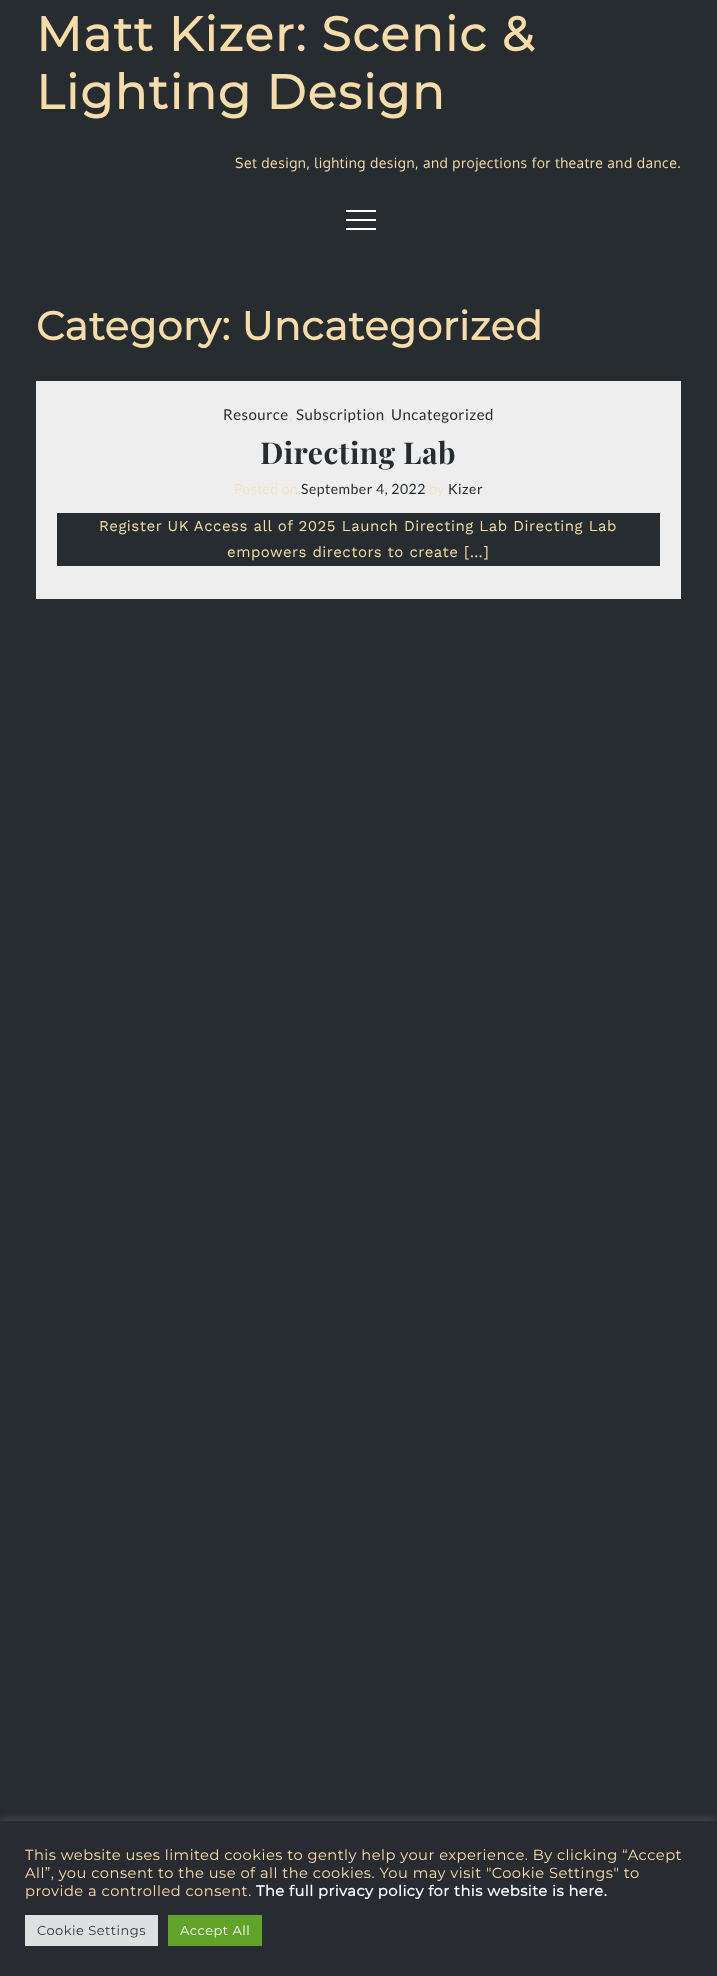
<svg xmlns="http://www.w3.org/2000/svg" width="717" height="1976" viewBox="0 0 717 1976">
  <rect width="100%" height="100%" fill="rgb(39,44,48)"/>
  <g font-family="Montserrat" font-size="48" font-weight="bold" letter-spacing="1.5" fill="rgb(245,220,168)">
    <text>
      <tspan x="36" y="51">Matt Kizer: Scenic &amp;</tspan>
      <tspan x="36" y="109">Lighting Design</tspan>
    </text>
  </g>
  <text x="235" y="168" font-family="Oxygen" font-size="14" letter-spacing="0.5" fill="rgb(245,220,168)">Set design, lighting design, and projections for theatre and dance.</text>
  <rect x="346" y="210" width="30" height="2" fill="rgb(255,255,255)"/>
  <rect x="346" y="219" width="30" height="2" fill="rgb(255,255,255)"/>
  <rect x="346" y="228" width="30" height="2" fill="rgb(255,255,255)"/>
  <text x="36" y="340" font-family="Montserrat" font-size="40" font-weight="bold" letter-spacing="0.5" fill="rgb(245,220,168)">Category: Uncategorized</text>
  <rect x="36" y="381" width="645" height="218" fill="rgb(238,238,238)"/>
  <text x="223" y="420" font-family="Lato" font-size="15" letter-spacing="0.5" fill="rgb(39,44,48)">Resource</text>
  <text x="289" y="420" font-family="Lato" font-size="15" letter-spacing="0.5" fill="rgb(245,220,168)">,</text>
  <text x="296" y="420" font-family="Lato" font-size="15" letter-spacing="0.5" fill="rgb(39,44,48)">Subscription</text>
  <text x="384" y="420" font-family="Lato" font-size="15" letter-spacing="0.5" fill="rgb(245,220,168)">,</text>
  <text x="391" y="420" font-family="Lato" font-size="15" letter-spacing="0.5" fill="rgb(39,44,48)">Uncategorized</text>
  <text x="260" y="464" font-family="Playfair Display" font-size="30" font-weight="bold" letter-spacing="0.5" fill="rgb(39,44,48)">Directing Lab</text>
  <text x="234" y="494" font-family="Lato" font-size="14" font-weight="300" letter-spacing="0.5" fill="rgb(245,220,168)">Posted on</text>
  <text x="301" y="494" font-family="Lato" font-size="14" letter-spacing="0.5" fill="rgb(39,44,48)">September 4, 2022</text>
  <text x="429" y="494" font-family="Lato" font-size="14" font-weight="300" letter-spacing="0.5" fill="rgb(245,220,168)">by</text>
  <text x="448" y="494" font-family="Lato" font-size="14" letter-spacing="0.5" fill="rgb(39,44,48)">Kizer</text>
  <rect x="57" y="513" width="603" height="53" fill="rgb(39,44,48)"/>
  <g font-family="Work Sans" font-size="15" letter-spacing="0.5" fill="rgb(245,220,168)">
    <text x="99" y="531">Register UK Access all of 2025 Launch Directing Lab Directing Lab</text>
    <text x="227" y="557">empowers directors to create […]</text>
  </g>
  <rect x="0" y="1820" width="717" height="155" fill="rgba(172,171,171,0.3)" filter="blur(5px)"/>
  <rect x="0" y="1821" width="717" height="155" fill="rgb(40,43,50)"/>
  <g font-family="Montserrat" font-size="14.65" font-weight="100" letter-spacing="0.5" fill="rgb(255,222,168)">
    <text>
      <tspan x="25" y="1860">This website uses limited cookies to gently help your experience. By clicking “Accept</tspan>
      <tspan x="25" y="1878">All”, you consent to the use of all the cookies. You may visit "Cookie Settings" to</tspan>
      <tspan x="25" y="1896">provide a controlled consent.</tspan>
    </text>
  </g>
  <text x="256" y="1896" font-family="Montserrat" font-size="14.65" font-weight="bold" letter-spacing="0.5" fill="rgb(255,255,255)">The full privacy policy for this website is here.</text>
  <rect x="25" y="1915" width="133" height="31" fill="rgb(222,223,224)"/>
  <text x="37" y="1935" font-family="Montserrat" font-size="13" font-weight="100" letter-spacing="0.5" fill="rgb(51,51,51)">Cookie Settings</text>
  <rect x="168" y="1915" width="94" height="31" fill="rgb(97,162,41)"/>
  <text x="180" y="1935" font-family="Montserrat" font-size="13" font-weight="100" letter-spacing="0.5" fill="rgb(255,255,255)">Accept All</text>
</svg>
